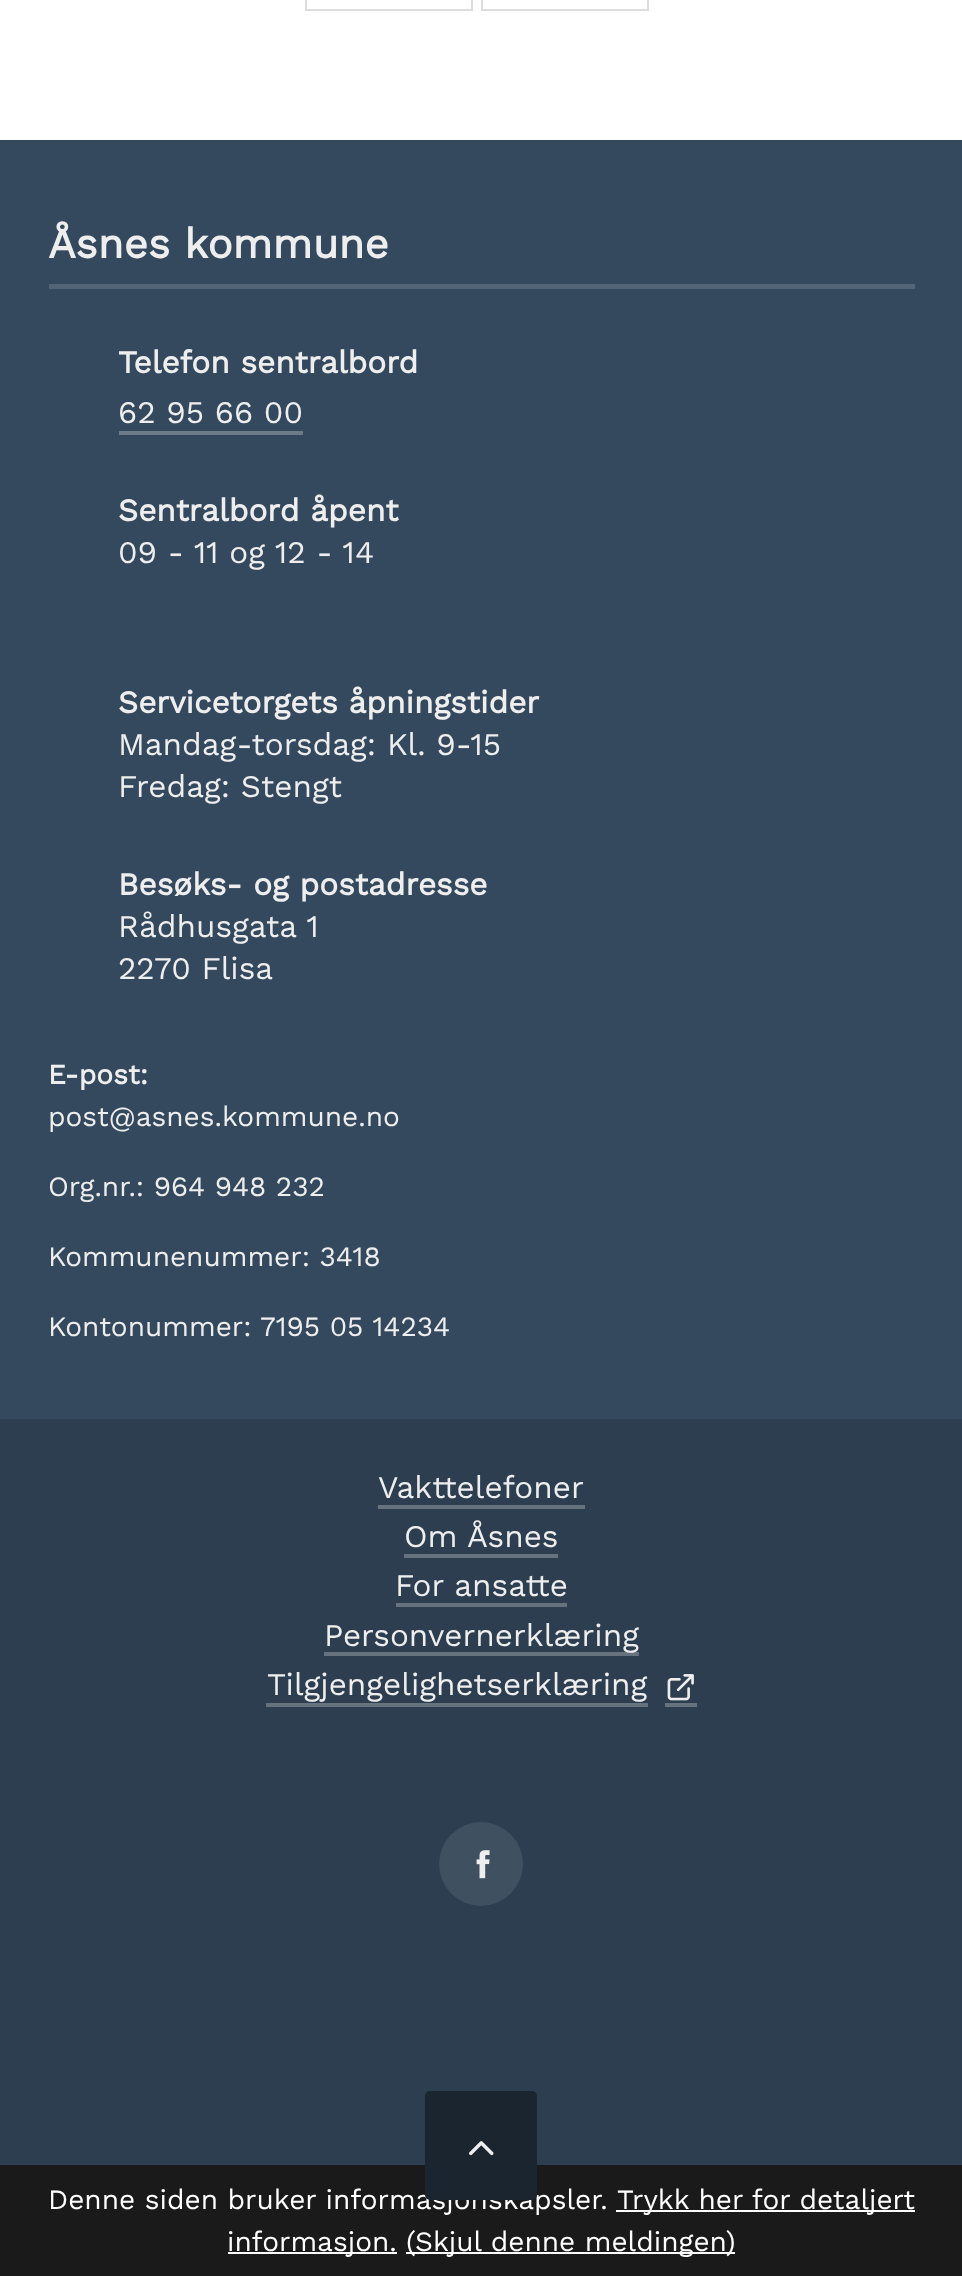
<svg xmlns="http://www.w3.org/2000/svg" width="962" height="2276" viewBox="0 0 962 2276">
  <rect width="100%" height="100%" fill="rgb(255,255,255)"/>
  <rect x="306" y="-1" width="166" height="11" fill="none" stroke="rgb(221,221,221)" stroke-width="2"/>
  <rect x="482" y="-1" width="166" height="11" fill="none" stroke="rgb(221,221,221)" stroke-width="2"/>
  <rect x="0" y="140" width="962" height="1279" fill="rgb(52,73,94)"/>
  <rect x="49" y="284" width="866" height="5" fill="rgb(82,100,118)"/>
  <text x="48" y="258" font-family="Work Sans" font-size="42" font-weight="bold" fill="rgb(238,238,238)">Åsnes kommune</text>
  <text x="118" y="373" font-family="Work Sans" font-size="31.5" font-weight="bold" fill="rgb(238,238,238)">Telefon sentralbord</text>
  <text x="118" y="423" font-family="Work Sans" font-size="31.5" fill="rgb(238,238,238)">62 95 66 00</text>
  <rect x="119" y="431" width="184" height="4" fill="rgb(108,123,137)"/>
  <text x="118" y="521" font-family="Work Sans" font-size="31.5" font-weight="bold" fill="rgb(238,238,238)">Sentralbord åpent</text>
  <text x="118" y="563" font-family="Work Sans" font-size="31.5" fill="rgb(238,238,238)">09 - 11 og 12 - 14</text>
  <text x="118" y="713" font-family="Work Sans" font-size="31.5" font-weight="bold" fill="rgb(238,238,238)">Servicetorgets åpningstider</text>
  <g font-family="Work Sans" font-size="31.5" fill="rgb(238,238,238)">
    <text>
      <tspan x="118" y="755">Mandag-torsdag: Kl. 9-15</tspan>
      <tspan x="118" y="797">Fredag: Stengt</tspan>
    </text>
  </g>
  <text x="118" y="895" font-family="Work Sans" font-size="31.5" font-weight="bold" fill="rgb(238,238,238)">Besøks- og postadresse</text>
  <g font-family="Work Sans" font-size="31.5" fill="rgb(238,238,238)">
    <text>
      <tspan x="118" y="937">Rådhusgata 1</tspan>
      <tspan x="118" y="979">2270 Flisa</tspan>
    </text>
  </g>
  <text x="48" y="1084" font-family="Work Sans" font-size="28" font-weight="bold" fill="rgb(238,238,238)">E-post:</text>
  <g font-family="Work Sans" font-size="28" fill="rgb(238,238,238)">
    <text x="48" y="1126">post@asnes.kommune.no</text>
    <text x="48" y="1196">Org.nr.: 964 948 232</text>
    <text x="48" y="1266">Kommunenummer: 3418</text>
    <text x="48" y="1336">Kontonummer: 7195 05 14234</text>
  </g>
  <rect x="0" y="1419" width="962" height="746" fill="rgb(44,62,80)"/>
  <text x="378" y="1498" font-family="Work Sans" font-size="31.5" fill="rgb(238,238,238)">Vakttelefoner</text>
  <rect x="378" y="1505" width="207" height="4" fill="rgb(102,115,127)"/>
  <text x="404" y="1547" font-family="Work Sans" font-size="31.5" fill="rgb(238,238,238)">Om Åsnes</text>
  <rect x="404" y="1554" width="154" height="4" fill="rgb(102,115,127)"/>
  <text x="395" y="1596" font-family="Work Sans" font-size="31.5" fill="rgb(238,238,238)">For ansatte</text>
  <rect x="396" y="1603" width="171" height="4" fill="rgb(102,115,127)"/>
  <rect x="324" y="1652" width="315" height="4" fill="rgb(102,115,127)"/>
  <g font-family="Work Sans" font-size="31.5" fill="rgb(238,238,238)">
    <text x="324" y="1646">Personvernerklæring</text>
    <text x="267" y="1695">Tilgjengelighetserklæring</text>
  </g>
  <rect x="266" y="1703" width="382" height="4" fill="rgb(102,115,127)"/>
  <rect x="665" y="1703" width="32" height="4" fill="rgb(102,115,127)"/>
  <image x="667" y="1674" width="27" height="27" href="pic1.png"/>
  <circle cx="481" cy="1864" r="42" fill="rgb(63,80,96)"/>
  <image x="476" y="1850" width="14" height="29" href="pic2.png"/>
  <rect x="0" y="2165" width="962" height="111" fill="rgb(26,26,26)"/>
  <text x="48" y="2209" font-family="Work Sans" font-size="28" fill="rgb(255,255,255)">Denne siden bruker informasjonskapsler.</text>
  <rect x="425" y="2091" width="112" height="109" rx="5" fill="rgb(26,37,47)"/>
  <image x="469" y="2141" width="25" height="15" href="pic3.png"/>
  <rect x="616" y="2210" width="299" height="2" fill="rgb(255,255,255)"/>
  <text x="617" y="2209" font-family="Work Sans" font-size="28" fill="rgb(255,255,255)">Trykk her for detaljert</text>
  <rect x="228" y="2252" width="169" height="2" fill="rgb(255,255,255)"/>
  <text x="227" y="2251" font-family="Work Sans" font-size="28" fill="rgb(255,255,255)">informasjon.</text>
  <rect x="406" y="2252" width="329" height="2" fill="rgb(255,255,255)"/>
  <text x="406" y="2251" font-family="Work Sans" font-size="28" fill="rgb(255,255,255)">(Skjul denne meldingen)</text>
</svg>
